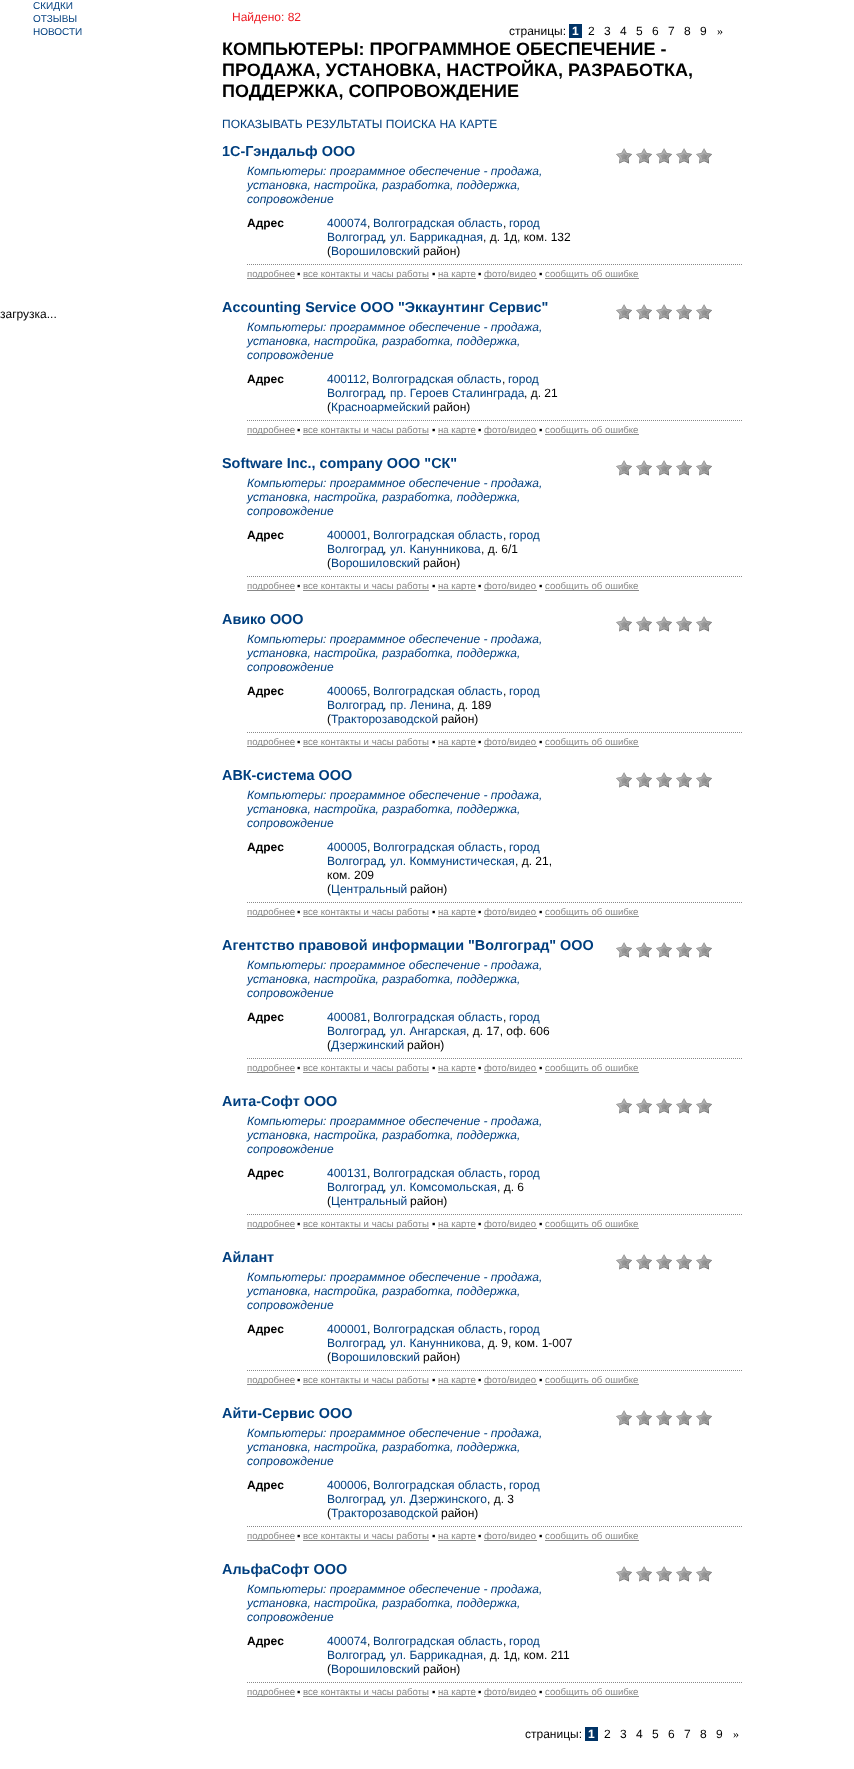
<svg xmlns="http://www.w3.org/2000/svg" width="854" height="1769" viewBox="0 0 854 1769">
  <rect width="100%" height="100%" fill="rgb(255,255,255)"/>
  <g font-family="Liberation Sans" font-size="10" fill="rgb(0,63,127)">
    <text>
      <tspan x="33" y="9">СКИДКИ</tspan>
      <tspan x="33" y="22">ОТЗЫВЫ</tspan>
      <tspan x="33" y="35">НОВОСТИ</tspan>
    </text>
  </g>
  <text x="0" y="318" font-family="Liberation Sans" font-size="12" fill="rgb(0,0,0)">загрузка...</text>
  <text x="232" y="21" font-family="Liberation Sans" font-size="12" fill="rgb(237,28,36)">Найдено: 82</text>
  <text x="509" y="35" font-family="Liberation Sans" font-size="12" fill="rgb(0,0,0)">страницы:</text>
  <rect x="569" y="24" width="13" height="14" fill="rgb(0,51,102)"/>
  <text x="572" y="35" font-family="Liberation Sans" font-size="12" font-weight="bold" fill="rgb(255,255,255)">1</text>
  <g font-family="Liberation Sans" font-size="12" fill="rgb(0,0,0)">
    <text x="588" y="35">2</text>
    <text x="604" y="35">3</text>
    <text x="620" y="35">4</text>
    <text x="636" y="35">5</text>
    <text x="652" y="35">6</text>
    <text x="668" y="35">7</text>
    <text x="684" y="35">8</text>
    <text x="700" y="35">9</text>
  </g>
  <text x="717" y="35" font-family="Liberation Serif" font-size="12" fill="rgb(0,0,0)">»</text>
  <g font-family="Liberation Sans" font-size="18" font-weight="bold" fill="rgb(0,0,0)">
    <text>
      <tspan x="222" y="55">КОМПЬЮТЕРЫ: ПРОГРАММНОЕ ОБЕСПЕЧЕНИЕ -</tspan>
      <tspan x="222" y="76">ПРОДАЖА, УСТАНОВКА, НАСТРОЙКА, РАЗРАБОТКА,</tspan>
      <tspan x="222" y="97">ПОДДЕРЖКА, СОПРОВОЖДЕНИЕ</tspan>
    </text>
  </g>
  <text x="222" y="128" font-family="Liberation Sans" font-size="12" fill="rgb(0,63,127)">ПОКАЗЫВАТЬ РЕЗУЛЬТАТЫ ПОИСКА НА КАРТЕ</text>
  <text x="222" y="156" font-family="Liberation Sans" font-size="14.4" font-weight="bold" fill="rgb(0,63,127)">1С-Гэндальф ООО</text>
  <image x="616" y="148" width="16" height="16" href="pic1.png"/>
  <image x="636" y="148" width="16" height="16" href="pic1.png"/>
  <image x="656" y="148" width="16" height="16" href="pic1.png"/>
  <image x="676" y="148" width="16" height="16" href="pic1.png"/>
  <image x="696" y="148" width="16" height="16" href="pic1.png"/>
  <g font-family="Liberation Sans" font-size="12" font-style="italic" fill="rgb(0,63,127)">
    <text>
      <tspan x="247" y="175">Компьютеры: программное обеспечение - продажа,</tspan>
      <tspan x="247" y="189">установка, настройка, разработка, поддержка,</tspan>
      <tspan x="247" y="203">сопровождение</tspan>
    </text>
  </g>
  <text x="247" y="227" font-family="Liberation Sans" font-size="12" font-weight="bold" fill="rgb(0,0,0)">Адрес</text>
  <text x="327" y="227" font-family="Liberation Sans" font-size="12" fill="rgb(0,63,127)">400074</text>
  <text x="367" y="227" font-family="Liberation Sans" font-size="12" fill="rgb(0,0,0)">,</text>
  <text x="373" y="227" font-family="Liberation Sans" font-size="12" fill="rgb(0,63,127)">Волгоградская область</text>
  <text x="503" y="227" font-family="Liberation Sans" font-size="12" fill="rgb(0,0,0)">,</text>
  <g font-family="Liberation Sans" font-size="12" fill="rgb(0,63,127)">
    <text x="509" y="227">город</text>
    <text x="327" y="241">Волгоград</text>
  </g>
  <text x="383" y="241" font-family="Liberation Sans" font-size="12" fill="rgb(0,0,0)">,</text>
  <text x="390" y="241" font-family="Liberation Sans" font-size="12" fill="rgb(0,63,127)">ул. Баррикадная</text>
  <g font-family="Liberation Sans" font-size="12" fill="rgb(0,0,0)">
    <text x="483" y="241">, д. 1д, ком. 132</text>
    <text x="327" y="255">(</text>
  </g>
  <text x="331" y="255" font-family="Liberation Sans" font-size="12" fill="rgb(0,63,127)">Ворошиловский</text>
  <text x="423" y="255" font-family="Liberation Sans" font-size="12" fill="rgb(0,0,0)">район)</text>
  <path d="M247 264.5H742" fill="none" stroke="rgb(136,136,136)" stroke-dasharray="1 1"/>
  <rect x="247" y="278" width="48" height="1" fill="rgb(136,136,136)"/>
  <text x="247" y="277" font-family="Liberation Sans" font-size="9.6" fill="rgb(136,136,136)">подробнее</text>
  <text x="297" y="277" font-family="Liberation Sans" font-size="9.6" fill="rgb(0,0,0)">▪</text>
  <rect x="303" y="278" width="126" height="1" fill="rgb(136,136,136)"/>
  <text x="303" y="277" font-family="Liberation Sans" font-size="9.6" fill="rgb(136,136,136)">все контакты и часы работы</text>
  <text x="432" y="277" font-family="Liberation Sans" font-size="9.6" fill="rgb(0,0,0)">▪</text>
  <rect x="438" y="278" width="38" height="1" fill="rgb(136,136,136)"/>
  <text x="438" y="277" font-family="Liberation Sans" font-size="9.6" fill="rgb(136,136,136)">на карте</text>
  <text x="478" y="277" font-family="Liberation Sans" font-size="9.6" fill="rgb(0,0,0)">▪</text>
  <rect x="484" y="278" width="53" height="1" fill="rgb(136,136,136)"/>
  <text x="484" y="277" font-family="Liberation Sans" font-size="9.6" fill="rgb(136,136,136)">фото/видео</text>
  <text x="539" y="277" font-family="Liberation Sans" font-size="9.6" fill="rgb(0,0,0)">▪</text>
  <rect x="545" y="278" width="94" height="1" fill="rgb(136,136,136)"/>
  <text x="545" y="277" font-family="Liberation Sans" font-size="9.6" fill="rgb(136,136,136)">сообщить об ошибке</text>
  <text x="222" y="312" font-family="Liberation Sans" font-size="14.4" font-weight="bold" fill="rgb(0,63,127)">Accounting Service ООО "Эккаунтинг Сервис"</text>
  <image x="616" y="304" width="16" height="16" href="pic1.png"/>
  <image x="636" y="304" width="16" height="16" href="pic1.png"/>
  <image x="656" y="304" width="16" height="16" href="pic1.png"/>
  <image x="676" y="304" width="16" height="16" href="pic1.png"/>
  <image x="696" y="304" width="16" height="16" href="pic1.png"/>
  <g font-family="Liberation Sans" font-size="12" font-style="italic" fill="rgb(0,63,127)">
    <text>
      <tspan x="247" y="331">Компьютеры: программное обеспечение - продажа,</tspan>
      <tspan x="247" y="345">установка, настройка, разработка, поддержка,</tspan>
      <tspan x="247" y="359">сопровождение</tspan>
    </text>
  </g>
  <text x="247" y="383" font-family="Liberation Sans" font-size="12" font-weight="bold" fill="rgb(0,0,0)">Адрес</text>
  <text x="327" y="383" font-family="Liberation Sans" font-size="12" fill="rgb(0,63,127)">400112</text>
  <text x="366" y="383" font-family="Liberation Sans" font-size="12" fill="rgb(0,0,0)">,</text>
  <text x="372" y="383" font-family="Liberation Sans" font-size="12" fill="rgb(0,63,127)">Волгоградская область</text>
  <text x="502" y="383" font-family="Liberation Sans" font-size="12" fill="rgb(0,0,0)">,</text>
  <g font-family="Liberation Sans" font-size="12" fill="rgb(0,63,127)">
    <text x="508" y="383">город</text>
    <text x="327" y="397">Волгоград</text>
  </g>
  <text x="383" y="397" font-family="Liberation Sans" font-size="12" fill="rgb(0,0,0)">,</text>
  <text x="390" y="397" font-family="Liberation Sans" font-size="12" fill="rgb(0,63,127)">пр. Героев Сталинграда</text>
  <g font-family="Liberation Sans" font-size="12" fill="rgb(0,0,0)">
    <text x="524" y="397">, д. 21</text>
    <text x="327" y="411">(</text>
  </g>
  <text x="331" y="411" font-family="Liberation Sans" font-size="12" fill="rgb(0,63,127)">Красноармейский</text>
  <text x="433" y="411" font-family="Liberation Sans" font-size="12" fill="rgb(0,0,0)">район)</text>
  <path d="M247 420.5H742" fill="none" stroke="rgb(136,136,136)" stroke-dasharray="1 1"/>
  <rect x="247" y="434" width="48" height="1" fill="rgb(136,136,136)"/>
  <text x="247" y="433" font-family="Liberation Sans" font-size="9.6" fill="rgb(136,136,136)">подробнее</text>
  <text x="297" y="433" font-family="Liberation Sans" font-size="9.6" fill="rgb(0,0,0)">▪</text>
  <rect x="303" y="434" width="126" height="1" fill="rgb(136,136,136)"/>
  <text x="303" y="433" font-family="Liberation Sans" font-size="9.6" fill="rgb(136,136,136)">все контакты и часы работы</text>
  <text x="432" y="433" font-family="Liberation Sans" font-size="9.6" fill="rgb(0,0,0)">▪</text>
  <rect x="438" y="434" width="38" height="1" fill="rgb(136,136,136)"/>
  <text x="438" y="433" font-family="Liberation Sans" font-size="9.6" fill="rgb(136,136,136)">на карте</text>
  <text x="478" y="433" font-family="Liberation Sans" font-size="9.6" fill="rgb(0,0,0)">▪</text>
  <rect x="484" y="434" width="53" height="1" fill="rgb(136,136,136)"/>
  <text x="484" y="433" font-family="Liberation Sans" font-size="9.6" fill="rgb(136,136,136)">фото/видео</text>
  <text x="539" y="433" font-family="Liberation Sans" font-size="9.6" fill="rgb(0,0,0)">▪</text>
  <rect x="545" y="434" width="94" height="1" fill="rgb(136,136,136)"/>
  <text x="545" y="433" font-family="Liberation Sans" font-size="9.6" fill="rgb(136,136,136)">сообщить об ошибке</text>
  <text x="222" y="468" font-family="Liberation Sans" font-size="14.4" font-weight="bold" fill="rgb(0,63,127)">Software Inc., company ООО "СК"</text>
  <image x="616" y="460" width="16" height="16" href="pic1.png"/>
  <image x="636" y="460" width="16" height="16" href="pic1.png"/>
  <image x="656" y="460" width="16" height="16" href="pic1.png"/>
  <image x="676" y="460" width="16" height="16" href="pic1.png"/>
  <image x="696" y="460" width="16" height="16" href="pic1.png"/>
  <g font-family="Liberation Sans" font-size="12" font-style="italic" fill="rgb(0,63,127)">
    <text>
      <tspan x="247" y="487">Компьютеры: программное обеспечение - продажа,</tspan>
      <tspan x="247" y="501">установка, настройка, разработка, поддержка,</tspan>
      <tspan x="247" y="515">сопровождение</tspan>
    </text>
  </g>
  <text x="247" y="539" font-family="Liberation Sans" font-size="12" font-weight="bold" fill="rgb(0,0,0)">Адрес</text>
  <text x="327" y="539" font-family="Liberation Sans" font-size="12" fill="rgb(0,63,127)">400001</text>
  <text x="367" y="539" font-family="Liberation Sans" font-size="12" fill="rgb(0,0,0)">,</text>
  <text x="373" y="539" font-family="Liberation Sans" font-size="12" fill="rgb(0,63,127)">Волгоградская область</text>
  <text x="503" y="539" font-family="Liberation Sans" font-size="12" fill="rgb(0,0,0)">,</text>
  <g font-family="Liberation Sans" font-size="12" fill="rgb(0,63,127)">
    <text x="509" y="539">город</text>
    <text x="327" y="553">Волгоград</text>
  </g>
  <text x="383" y="553" font-family="Liberation Sans" font-size="12" fill="rgb(0,0,0)">,</text>
  <text x="390" y="553" font-family="Liberation Sans" font-size="12" fill="rgb(0,63,127)">ул. Канунникова</text>
  <g font-family="Liberation Sans" font-size="12" fill="rgb(0,0,0)">
    <text x="481" y="553">, д. 6/1</text>
    <text x="327" y="567">(</text>
  </g>
  <text x="331" y="567" font-family="Liberation Sans" font-size="12" fill="rgb(0,63,127)">Ворошиловский</text>
  <text x="423" y="567" font-family="Liberation Sans" font-size="12" fill="rgb(0,0,0)">район)</text>
  <path d="M247 576.5H742" fill="none" stroke="rgb(136,136,136)" stroke-dasharray="1 1"/>
  <rect x="247" y="590" width="48" height="1" fill="rgb(136,136,136)"/>
  <text x="247" y="589" font-family="Liberation Sans" font-size="9.6" fill="rgb(136,136,136)">подробнее</text>
  <text x="297" y="589" font-family="Liberation Sans" font-size="9.6" fill="rgb(0,0,0)">▪</text>
  <rect x="303" y="590" width="126" height="1" fill="rgb(136,136,136)"/>
  <text x="303" y="589" font-family="Liberation Sans" font-size="9.6" fill="rgb(136,136,136)">все контакты и часы работы</text>
  <text x="432" y="589" font-family="Liberation Sans" font-size="9.6" fill="rgb(0,0,0)">▪</text>
  <rect x="438" y="590" width="38" height="1" fill="rgb(136,136,136)"/>
  <text x="438" y="589" font-family="Liberation Sans" font-size="9.6" fill="rgb(136,136,136)">на карте</text>
  <text x="478" y="589" font-family="Liberation Sans" font-size="9.6" fill="rgb(0,0,0)">▪</text>
  <rect x="484" y="590" width="53" height="1" fill="rgb(136,136,136)"/>
  <text x="484" y="589" font-family="Liberation Sans" font-size="9.6" fill="rgb(136,136,136)">фото/видео</text>
  <text x="539" y="589" font-family="Liberation Sans" font-size="9.6" fill="rgb(0,0,0)">▪</text>
  <rect x="545" y="590" width="94" height="1" fill="rgb(136,136,136)"/>
  <text x="545" y="589" font-family="Liberation Sans" font-size="9.6" fill="rgb(136,136,136)">сообщить об ошибке</text>
  <text x="222" y="624" font-family="Liberation Sans" font-size="14.4" font-weight="bold" fill="rgb(0,63,127)">Авико ООО</text>
  <image x="616" y="616" width="16" height="16" href="pic1.png"/>
  <image x="636" y="616" width="16" height="16" href="pic1.png"/>
  <image x="656" y="616" width="16" height="16" href="pic1.png"/>
  <image x="676" y="616" width="16" height="16" href="pic1.png"/>
  <image x="696" y="616" width="16" height="16" href="pic1.png"/>
  <g font-family="Liberation Sans" font-size="12" font-style="italic" fill="rgb(0,63,127)">
    <text>
      <tspan x="247" y="643">Компьютеры: программное обеспечение - продажа,</tspan>
      <tspan x="247" y="657">установка, настройка, разработка, поддержка,</tspan>
      <tspan x="247" y="671">сопровождение</tspan>
    </text>
  </g>
  <text x="247" y="695" font-family="Liberation Sans" font-size="12" font-weight="bold" fill="rgb(0,0,0)">Адрес</text>
  <text x="327" y="695" font-family="Liberation Sans" font-size="12" fill="rgb(0,63,127)">400065</text>
  <text x="367" y="695" font-family="Liberation Sans" font-size="12" fill="rgb(0,0,0)">,</text>
  <text x="373" y="695" font-family="Liberation Sans" font-size="12" fill="rgb(0,63,127)">Волгоградская область</text>
  <text x="503" y="695" font-family="Liberation Sans" font-size="12" fill="rgb(0,0,0)">,</text>
  <g font-family="Liberation Sans" font-size="12" fill="rgb(0,63,127)">
    <text x="509" y="695">город</text>
    <text x="327" y="709">Волгоград</text>
  </g>
  <text x="383" y="709" font-family="Liberation Sans" font-size="12" fill="rgb(0,0,0)">,</text>
  <text x="390" y="709" font-family="Liberation Sans" font-size="12" fill="rgb(0,63,127)">пр. Ленина</text>
  <g font-family="Liberation Sans" font-size="12" fill="rgb(0,0,0)">
    <text x="451" y="709">, д. 189</text>
    <text x="327" y="723">(</text>
  </g>
  <text x="331" y="723" font-family="Liberation Sans" font-size="12" fill="rgb(0,63,127)">Тракторозаводской</text>
  <text x="441" y="723" font-family="Liberation Sans" font-size="12" fill="rgb(0,0,0)">район)</text>
  <path d="M247 732.5H742" fill="none" stroke="rgb(136,136,136)" stroke-dasharray="1 1"/>
  <rect x="247" y="746" width="48" height="1" fill="rgb(136,136,136)"/>
  <text x="247" y="745" font-family="Liberation Sans" font-size="9.6" fill="rgb(136,136,136)">подробнее</text>
  <text x="297" y="745" font-family="Liberation Sans" font-size="9.6" fill="rgb(0,0,0)">▪</text>
  <rect x="303" y="746" width="126" height="1" fill="rgb(136,136,136)"/>
  <text x="303" y="745" font-family="Liberation Sans" font-size="9.6" fill="rgb(136,136,136)">все контакты и часы работы</text>
  <text x="432" y="745" font-family="Liberation Sans" font-size="9.6" fill="rgb(0,0,0)">▪</text>
  <rect x="438" y="746" width="38" height="1" fill="rgb(136,136,136)"/>
  <text x="438" y="745" font-family="Liberation Sans" font-size="9.6" fill="rgb(136,136,136)">на карте</text>
  <text x="478" y="745" font-family="Liberation Sans" font-size="9.6" fill="rgb(0,0,0)">▪</text>
  <rect x="484" y="746" width="53" height="1" fill="rgb(136,136,136)"/>
  <text x="484" y="745" font-family="Liberation Sans" font-size="9.6" fill="rgb(136,136,136)">фото/видео</text>
  <text x="539" y="745" font-family="Liberation Sans" font-size="9.6" fill="rgb(0,0,0)">▪</text>
  <rect x="545" y="746" width="94" height="1" fill="rgb(136,136,136)"/>
  <text x="545" y="745" font-family="Liberation Sans" font-size="9.6" fill="rgb(136,136,136)">сообщить об ошибке</text>
  <text x="222" y="780" font-family="Liberation Sans" font-size="14.4" font-weight="bold" fill="rgb(0,63,127)">АВК-система ООО</text>
  <image x="616" y="772" width="16" height="16" href="pic1.png"/>
  <image x="636" y="772" width="16" height="16" href="pic1.png"/>
  <image x="656" y="772" width="16" height="16" href="pic1.png"/>
  <image x="676" y="772" width="16" height="16" href="pic1.png"/>
  <image x="696" y="772" width="16" height="16" href="pic1.png"/>
  <g font-family="Liberation Sans" font-size="12" font-style="italic" fill="rgb(0,63,127)">
    <text>
      <tspan x="247" y="799">Компьютеры: программное обеспечение - продажа,</tspan>
      <tspan x="247" y="813">установка, настройка, разработка, поддержка,</tspan>
      <tspan x="247" y="827">сопровождение</tspan>
    </text>
  </g>
  <text x="247" y="851" font-family="Liberation Sans" font-size="12" font-weight="bold" fill="rgb(0,0,0)">Адрес</text>
  <text x="327" y="851" font-family="Liberation Sans" font-size="12" fill="rgb(0,63,127)">400005</text>
  <text x="367" y="851" font-family="Liberation Sans" font-size="12" fill="rgb(0,0,0)">,</text>
  <text x="373" y="851" font-family="Liberation Sans" font-size="12" fill="rgb(0,63,127)">Волгоградская область</text>
  <text x="503" y="851" font-family="Liberation Sans" font-size="12" fill="rgb(0,0,0)">,</text>
  <g font-family="Liberation Sans" font-size="12" fill="rgb(0,63,127)">
    <text x="509" y="851">город</text>
    <text x="327" y="865">Волгоград</text>
  </g>
  <text x="383" y="865" font-family="Liberation Sans" font-size="12" fill="rgb(0,0,0)">,</text>
  <text x="390" y="865" font-family="Liberation Sans" font-size="12" fill="rgb(0,63,127)">ул. Коммунистическая</text>
  <g font-family="Liberation Sans" font-size="12" fill="rgb(0,0,0)">
    <text x="515" y="865">, д. 21,</text>
    <text>
      <tspan x="327" y="879">ком. 209</tspan>
      <tspan x="327" y="893">(</tspan>
    </text>
  </g>
  <text x="331" y="893" font-family="Liberation Sans" font-size="12" fill="rgb(0,63,127)">Центральный</text>
  <text x="410" y="893" font-family="Liberation Sans" font-size="12" fill="rgb(0,0,0)">район)</text>
  <path d="M247 902.5H742" fill="none" stroke="rgb(136,136,136)" stroke-dasharray="1 1"/>
  <rect x="247" y="916" width="48" height="1" fill="rgb(136,136,136)"/>
  <text x="247" y="915" font-family="Liberation Sans" font-size="9.6" fill="rgb(136,136,136)">подробнее</text>
  <text x="297" y="915" font-family="Liberation Sans" font-size="9.6" fill="rgb(0,0,0)">▪</text>
  <rect x="303" y="916" width="126" height="1" fill="rgb(136,136,136)"/>
  <text x="303" y="915" font-family="Liberation Sans" font-size="9.6" fill="rgb(136,136,136)">все контакты и часы работы</text>
  <text x="432" y="915" font-family="Liberation Sans" font-size="9.6" fill="rgb(0,0,0)">▪</text>
  <rect x="438" y="916" width="38" height="1" fill="rgb(136,136,136)"/>
  <text x="438" y="915" font-family="Liberation Sans" font-size="9.6" fill="rgb(136,136,136)">на карте</text>
  <text x="478" y="915" font-family="Liberation Sans" font-size="9.6" fill="rgb(0,0,0)">▪</text>
  <rect x="484" y="916" width="53" height="1" fill="rgb(136,136,136)"/>
  <text x="484" y="915" font-family="Liberation Sans" font-size="9.6" fill="rgb(136,136,136)">фото/видео</text>
  <text x="539" y="915" font-family="Liberation Sans" font-size="9.6" fill="rgb(0,0,0)">▪</text>
  <rect x="545" y="916" width="94" height="1" fill="rgb(136,136,136)"/>
  <text x="545" y="915" font-family="Liberation Sans" font-size="9.6" fill="rgb(136,136,136)">сообщить об ошибке</text>
  <text x="222" y="950" font-family="Liberation Sans" font-size="14.4" font-weight="bold" fill="rgb(0,63,127)">Агентство правовой информации "Волгоград" ООО</text>
  <image x="616" y="942" width="16" height="16" href="pic1.png"/>
  <image x="636" y="942" width="16" height="16" href="pic1.png"/>
  <image x="656" y="942" width="16" height="16" href="pic1.png"/>
  <image x="676" y="942" width="16" height="16" href="pic1.png"/>
  <image x="696" y="942" width="16" height="16" href="pic1.png"/>
  <g font-family="Liberation Sans" font-size="12" font-style="italic" fill="rgb(0,63,127)">
    <text>
      <tspan x="247" y="969">Компьютеры: программное обеспечение - продажа,</tspan>
      <tspan x="247" y="983">установка, настройка, разработка, поддержка,</tspan>
      <tspan x="247" y="997">сопровождение</tspan>
    </text>
  </g>
  <text x="247" y="1021" font-family="Liberation Sans" font-size="12" font-weight="bold" fill="rgb(0,0,0)">Адрес</text>
  <text x="327" y="1021" font-family="Liberation Sans" font-size="12" fill="rgb(0,63,127)">400081</text>
  <text x="367" y="1021" font-family="Liberation Sans" font-size="12" fill="rgb(0,0,0)">,</text>
  <text x="373" y="1021" font-family="Liberation Sans" font-size="12" fill="rgb(0,63,127)">Волгоградская область</text>
  <text x="503" y="1021" font-family="Liberation Sans" font-size="12" fill="rgb(0,0,0)">,</text>
  <g font-family="Liberation Sans" font-size="12" fill="rgb(0,63,127)">
    <text x="509" y="1021">город</text>
    <text x="327" y="1035">Волгоград</text>
  </g>
  <text x="383" y="1035" font-family="Liberation Sans" font-size="12" fill="rgb(0,0,0)">,</text>
  <text x="390" y="1035" font-family="Liberation Sans" font-size="12" fill="rgb(0,63,127)">ул. Ангарская</text>
  <g font-family="Liberation Sans" font-size="12" fill="rgb(0,0,0)">
    <text x="466" y="1035">, д. 17, оф. 606</text>
    <text x="327" y="1049">(</text>
  </g>
  <text x="331" y="1049" font-family="Liberation Sans" font-size="12" fill="rgb(0,63,127)">Дзержинский</text>
  <text x="407" y="1049" font-family="Liberation Sans" font-size="12" fill="rgb(0,0,0)">район)</text>
  <path d="M247 1058.5H742" fill="none" stroke="rgb(136,136,136)" stroke-dasharray="1 1"/>
  <rect x="247" y="1072" width="48" height="1" fill="rgb(136,136,136)"/>
  <text x="247" y="1071" font-family="Liberation Sans" font-size="9.6" fill="rgb(136,136,136)">подробнее</text>
  <text x="297" y="1071" font-family="Liberation Sans" font-size="9.6" fill="rgb(0,0,0)">▪</text>
  <rect x="303" y="1072" width="126" height="1" fill="rgb(136,136,136)"/>
  <text x="303" y="1071" font-family="Liberation Sans" font-size="9.6" fill="rgb(136,136,136)">все контакты и часы работы</text>
  <text x="432" y="1071" font-family="Liberation Sans" font-size="9.6" fill="rgb(0,0,0)">▪</text>
  <rect x="438" y="1072" width="38" height="1" fill="rgb(136,136,136)"/>
  <text x="438" y="1071" font-family="Liberation Sans" font-size="9.6" fill="rgb(136,136,136)">на карте</text>
  <text x="478" y="1071" font-family="Liberation Sans" font-size="9.6" fill="rgb(0,0,0)">▪</text>
  <rect x="484" y="1072" width="53" height="1" fill="rgb(136,136,136)"/>
  <text x="484" y="1071" font-family="Liberation Sans" font-size="9.6" fill="rgb(136,136,136)">фото/видео</text>
  <text x="539" y="1071" font-family="Liberation Sans" font-size="9.6" fill="rgb(0,0,0)">▪</text>
  <rect x="545" y="1072" width="94" height="1" fill="rgb(136,136,136)"/>
  <text x="545" y="1071" font-family="Liberation Sans" font-size="9.6" fill="rgb(136,136,136)">сообщить об ошибке</text>
  <text x="222" y="1106" font-family="Liberation Sans" font-size="14.4" font-weight="bold" fill="rgb(0,63,127)">Аита-Софт ООО</text>
  <image x="616" y="1098" width="16" height="16" href="pic1.png"/>
  <image x="636" y="1098" width="16" height="16" href="pic1.png"/>
  <image x="656" y="1098" width="16" height="16" href="pic1.png"/>
  <image x="676" y="1098" width="16" height="16" href="pic1.png"/>
  <image x="696" y="1098" width="16" height="16" href="pic1.png"/>
  <g font-family="Liberation Sans" font-size="12" font-style="italic" fill="rgb(0,63,127)">
    <text>
      <tspan x="247" y="1125">Компьютеры: программное обеспечение - продажа,</tspan>
      <tspan x="247" y="1139">установка, настройка, разработка, поддержка,</tspan>
      <tspan x="247" y="1153">сопровождение</tspan>
    </text>
  </g>
  <text x="247" y="1177" font-family="Liberation Sans" font-size="12" font-weight="bold" fill="rgb(0,0,0)">Адрес</text>
  <text x="327" y="1177" font-family="Liberation Sans" font-size="12" fill="rgb(0,63,127)">400131</text>
  <text x="367" y="1177" font-family="Liberation Sans" font-size="12" fill="rgb(0,0,0)">,</text>
  <text x="373" y="1177" font-family="Liberation Sans" font-size="12" fill="rgb(0,63,127)">Волгоградская область</text>
  <text x="503" y="1177" font-family="Liberation Sans" font-size="12" fill="rgb(0,0,0)">,</text>
  <g font-family="Liberation Sans" font-size="12" fill="rgb(0,63,127)">
    <text x="509" y="1177">город</text>
    <text x="327" y="1191">Волгоград</text>
  </g>
  <text x="383" y="1191" font-family="Liberation Sans" font-size="12" fill="rgb(0,0,0)">,</text>
  <text x="390" y="1191" font-family="Liberation Sans" font-size="12" fill="rgb(0,63,127)">ул. Комсомольская</text>
  <g font-family="Liberation Sans" font-size="12" fill="rgb(0,0,0)">
    <text x="497" y="1191">, д. 6</text>
    <text x="327" y="1205">(</text>
  </g>
  <text x="331" y="1205" font-family="Liberation Sans" font-size="12" fill="rgb(0,63,127)">Центральный</text>
  <text x="410" y="1205" font-family="Liberation Sans" font-size="12" fill="rgb(0,0,0)">район)</text>
  <path d="M247 1214.5H742" fill="none" stroke="rgb(136,136,136)" stroke-dasharray="1 1"/>
  <rect x="247" y="1228" width="48" height="1" fill="rgb(136,136,136)"/>
  <text x="247" y="1227" font-family="Liberation Sans" font-size="9.6" fill="rgb(136,136,136)">подробнее</text>
  <text x="297" y="1227" font-family="Liberation Sans" font-size="9.6" fill="rgb(0,0,0)">▪</text>
  <rect x="303" y="1228" width="126" height="1" fill="rgb(136,136,136)"/>
  <text x="303" y="1227" font-family="Liberation Sans" font-size="9.6" fill="rgb(136,136,136)">все контакты и часы работы</text>
  <text x="432" y="1227" font-family="Liberation Sans" font-size="9.6" fill="rgb(0,0,0)">▪</text>
  <rect x="438" y="1228" width="38" height="1" fill="rgb(136,136,136)"/>
  <text x="438" y="1227" font-family="Liberation Sans" font-size="9.6" fill="rgb(136,136,136)">на карте</text>
  <text x="478" y="1227" font-family="Liberation Sans" font-size="9.6" fill="rgb(0,0,0)">▪</text>
  <rect x="484" y="1228" width="53" height="1" fill="rgb(136,136,136)"/>
  <text x="484" y="1227" font-family="Liberation Sans" font-size="9.6" fill="rgb(136,136,136)">фото/видео</text>
  <text x="539" y="1227" font-family="Liberation Sans" font-size="9.6" fill="rgb(0,0,0)">▪</text>
  <rect x="545" y="1228" width="94" height="1" fill="rgb(136,136,136)"/>
  <text x="545" y="1227" font-family="Liberation Sans" font-size="9.6" fill="rgb(136,136,136)">сообщить об ошибке</text>
  <text x="222" y="1262" font-family="Liberation Sans" font-size="14.4" font-weight="bold" fill="rgb(0,63,127)">Айлант</text>
  <image x="616" y="1254" width="16" height="16" href="pic1.png"/>
  <image x="636" y="1254" width="16" height="16" href="pic1.png"/>
  <image x="656" y="1254" width="16" height="16" href="pic1.png"/>
  <image x="676" y="1254" width="16" height="16" href="pic1.png"/>
  <image x="696" y="1254" width="16" height="16" href="pic1.png"/>
  <g font-family="Liberation Sans" font-size="12" font-style="italic" fill="rgb(0,63,127)">
    <text>
      <tspan x="247" y="1281">Компьютеры: программное обеспечение - продажа,</tspan>
      <tspan x="247" y="1295">установка, настройка, разработка, поддержка,</tspan>
      <tspan x="247" y="1309">сопровождение</tspan>
    </text>
  </g>
  <text x="247" y="1333" font-family="Liberation Sans" font-size="12" font-weight="bold" fill="rgb(0,0,0)">Адрес</text>
  <text x="327" y="1333" font-family="Liberation Sans" font-size="12" fill="rgb(0,63,127)">400001</text>
  <text x="367" y="1333" font-family="Liberation Sans" font-size="12" fill="rgb(0,0,0)">,</text>
  <text x="373" y="1333" font-family="Liberation Sans" font-size="12" fill="rgb(0,63,127)">Волгоградская область</text>
  <text x="503" y="1333" font-family="Liberation Sans" font-size="12" fill="rgb(0,0,0)">,</text>
  <g font-family="Liberation Sans" font-size="12" fill="rgb(0,63,127)">
    <text x="509" y="1333">город</text>
    <text x="327" y="1347">Волгоград</text>
  </g>
  <text x="383" y="1347" font-family="Liberation Sans" font-size="12" fill="rgb(0,0,0)">,</text>
  <text x="390" y="1347" font-family="Liberation Sans" font-size="12" fill="rgb(0,63,127)">ул. Канунникова</text>
  <g font-family="Liberation Sans" font-size="12" fill="rgb(0,0,0)">
    <text x="481" y="1347">, д. 9, ком. 1-007</text>
    <text x="327" y="1361">(</text>
  </g>
  <text x="331" y="1361" font-family="Liberation Sans" font-size="12" fill="rgb(0,63,127)">Ворошиловский</text>
  <text x="423" y="1361" font-family="Liberation Sans" font-size="12" fill="rgb(0,0,0)">район)</text>
  <path d="M247 1370.5H742" fill="none" stroke="rgb(136,136,136)" stroke-dasharray="1 1"/>
  <rect x="247" y="1384" width="48" height="1" fill="rgb(136,136,136)"/>
  <text x="247" y="1383" font-family="Liberation Sans" font-size="9.6" fill="rgb(136,136,136)">подробнее</text>
  <text x="297" y="1383" font-family="Liberation Sans" font-size="9.6" fill="rgb(0,0,0)">▪</text>
  <rect x="303" y="1384" width="126" height="1" fill="rgb(136,136,136)"/>
  <text x="303" y="1383" font-family="Liberation Sans" font-size="9.6" fill="rgb(136,136,136)">все контакты и часы работы</text>
  <text x="432" y="1383" font-family="Liberation Sans" font-size="9.6" fill="rgb(0,0,0)">▪</text>
  <rect x="438" y="1384" width="38" height="1" fill="rgb(136,136,136)"/>
  <text x="438" y="1383" font-family="Liberation Sans" font-size="9.6" fill="rgb(136,136,136)">на карте</text>
  <text x="478" y="1383" font-family="Liberation Sans" font-size="9.6" fill="rgb(0,0,0)">▪</text>
  <rect x="484" y="1384" width="53" height="1" fill="rgb(136,136,136)"/>
  <text x="484" y="1383" font-family="Liberation Sans" font-size="9.6" fill="rgb(136,136,136)">фото/видео</text>
  <text x="539" y="1383" font-family="Liberation Sans" font-size="9.6" fill="rgb(0,0,0)">▪</text>
  <rect x="545" y="1384" width="94" height="1" fill="rgb(136,136,136)"/>
  <text x="545" y="1383" font-family="Liberation Sans" font-size="9.6" fill="rgb(136,136,136)">сообщить об ошибке</text>
  <text x="222" y="1418" font-family="Liberation Sans" font-size="14.4" font-weight="bold" fill="rgb(0,63,127)">Айти-Сервис ООО</text>
  <image x="616" y="1410" width="16" height="16" href="pic1.png"/>
  <image x="636" y="1410" width="16" height="16" href="pic1.png"/>
  <image x="656" y="1410" width="16" height="16" href="pic1.png"/>
  <image x="676" y="1410" width="16" height="16" href="pic1.png"/>
  <image x="696" y="1410" width="16" height="16" href="pic1.png"/>
  <g font-family="Liberation Sans" font-size="12" font-style="italic" fill="rgb(0,63,127)">
    <text>
      <tspan x="247" y="1437">Компьютеры: программное обеспечение - продажа,</tspan>
      <tspan x="247" y="1451">установка, настройка, разработка, поддержка,</tspan>
      <tspan x="247" y="1465">сопровождение</tspan>
    </text>
  </g>
  <text x="247" y="1489" font-family="Liberation Sans" font-size="12" font-weight="bold" fill="rgb(0,0,0)">Адрес</text>
  <text x="327" y="1489" font-family="Liberation Sans" font-size="12" fill="rgb(0,63,127)">400006</text>
  <text x="367" y="1489" font-family="Liberation Sans" font-size="12" fill="rgb(0,0,0)">,</text>
  <text x="373" y="1489" font-family="Liberation Sans" font-size="12" fill="rgb(0,63,127)">Волгоградская область</text>
  <text x="503" y="1489" font-family="Liberation Sans" font-size="12" fill="rgb(0,0,0)">,</text>
  <g font-family="Liberation Sans" font-size="12" fill="rgb(0,63,127)">
    <text x="509" y="1489">город</text>
    <text x="327" y="1503">Волгоград</text>
  </g>
  <text x="383" y="1503" font-family="Liberation Sans" font-size="12" fill="rgb(0,0,0)">,</text>
  <text x="390" y="1503" font-family="Liberation Sans" font-size="12" fill="rgb(0,63,127)">ул. Дзержинского</text>
  <g font-family="Liberation Sans" font-size="12" fill="rgb(0,0,0)">
    <text x="487" y="1503">, д. 3</text>
    <text x="327" y="1517">(</text>
  </g>
  <text x="331" y="1517" font-family="Liberation Sans" font-size="12" fill="rgb(0,63,127)">Тракторозаводской</text>
  <text x="441" y="1517" font-family="Liberation Sans" font-size="12" fill="rgb(0,0,0)">район)</text>
  <path d="M247 1526.5H742" fill="none" stroke="rgb(136,136,136)" stroke-dasharray="1 1"/>
  <rect x="247" y="1540" width="48" height="1" fill="rgb(136,136,136)"/>
  <text x="247" y="1539" font-family="Liberation Sans" font-size="9.6" fill="rgb(136,136,136)">подробнее</text>
  <text x="297" y="1539" font-family="Liberation Sans" font-size="9.6" fill="rgb(0,0,0)">▪</text>
  <rect x="303" y="1540" width="126" height="1" fill="rgb(136,136,136)"/>
  <text x="303" y="1539" font-family="Liberation Sans" font-size="9.6" fill="rgb(136,136,136)">все контакты и часы работы</text>
  <text x="432" y="1539" font-family="Liberation Sans" font-size="9.6" fill="rgb(0,0,0)">▪</text>
  <rect x="438" y="1540" width="38" height="1" fill="rgb(136,136,136)"/>
  <text x="438" y="1539" font-family="Liberation Sans" font-size="9.6" fill="rgb(136,136,136)">на карте</text>
  <text x="478" y="1539" font-family="Liberation Sans" font-size="9.6" fill="rgb(0,0,0)">▪</text>
  <rect x="484" y="1540" width="53" height="1" fill="rgb(136,136,136)"/>
  <text x="484" y="1539" font-family="Liberation Sans" font-size="9.6" fill="rgb(136,136,136)">фото/видео</text>
  <text x="539" y="1539" font-family="Liberation Sans" font-size="9.6" fill="rgb(0,0,0)">▪</text>
  <rect x="545" y="1540" width="94" height="1" fill="rgb(136,136,136)"/>
  <text x="545" y="1539" font-family="Liberation Sans" font-size="9.6" fill="rgb(136,136,136)">сообщить об ошибке</text>
  <text x="222" y="1574" font-family="Liberation Sans" font-size="14.4" font-weight="bold" fill="rgb(0,63,127)">АльфаСофт ООО</text>
  <image x="616" y="1566" width="16" height="16" href="pic1.png"/>
  <image x="636" y="1566" width="16" height="16" href="pic1.png"/>
  <image x="656" y="1566" width="16" height="16" href="pic1.png"/>
  <image x="676" y="1566" width="16" height="16" href="pic1.png"/>
  <image x="696" y="1566" width="16" height="16" href="pic1.png"/>
  <g font-family="Liberation Sans" font-size="12" font-style="italic" fill="rgb(0,63,127)">
    <text>
      <tspan x="247" y="1593">Компьютеры: программное обеспечение - продажа,</tspan>
      <tspan x="247" y="1607">установка, настройка, разработка, поддержка,</tspan>
      <tspan x="247" y="1621">сопровождение</tspan>
    </text>
  </g>
  <text x="247" y="1645" font-family="Liberation Sans" font-size="12" font-weight="bold" fill="rgb(0,0,0)">Адрес</text>
  <text x="327" y="1645" font-family="Liberation Sans" font-size="12" fill="rgb(0,63,127)">400074</text>
  <text x="367" y="1645" font-family="Liberation Sans" font-size="12" fill="rgb(0,0,0)">,</text>
  <text x="373" y="1645" font-family="Liberation Sans" font-size="12" fill="rgb(0,63,127)">Волгоградская область</text>
  <text x="503" y="1645" font-family="Liberation Sans" font-size="12" fill="rgb(0,0,0)">,</text>
  <g font-family="Liberation Sans" font-size="12" fill="rgb(0,63,127)">
    <text x="509" y="1645">город</text>
    <text x="327" y="1659">Волгоград</text>
  </g>
  <text x="383" y="1659" font-family="Liberation Sans" font-size="12" fill="rgb(0,0,0)">,</text>
  <text x="390" y="1659" font-family="Liberation Sans" font-size="12" fill="rgb(0,63,127)">ул. Баррикадная</text>
  <g font-family="Liberation Sans" font-size="12" fill="rgb(0,0,0)">
    <text x="483" y="1659">, д. 1д, ком. 211</text>
    <text x="327" y="1673">(</text>
  </g>
  <text x="331" y="1673" font-family="Liberation Sans" font-size="12" fill="rgb(0,63,127)">Ворошиловский</text>
  <text x="423" y="1673" font-family="Liberation Sans" font-size="12" fill="rgb(0,0,0)">район)</text>
  <path d="M247 1682.5H742" fill="none" stroke="rgb(136,136,136)" stroke-dasharray="1 1"/>
  <rect x="247" y="1696" width="48" height="1" fill="rgb(136,136,136)"/>
  <text x="247" y="1695" font-family="Liberation Sans" font-size="9.6" fill="rgb(136,136,136)">подробнее</text>
  <text x="297" y="1695" font-family="Liberation Sans" font-size="9.6" fill="rgb(0,0,0)">▪</text>
  <rect x="303" y="1696" width="126" height="1" fill="rgb(136,136,136)"/>
  <text x="303" y="1695" font-family="Liberation Sans" font-size="9.6" fill="rgb(136,136,136)">все контакты и часы работы</text>
  <text x="432" y="1695" font-family="Liberation Sans" font-size="9.6" fill="rgb(0,0,0)">▪</text>
  <rect x="438" y="1696" width="38" height="1" fill="rgb(136,136,136)"/>
  <text x="438" y="1695" font-family="Liberation Sans" font-size="9.6" fill="rgb(136,136,136)">на карте</text>
  <text x="478" y="1695" font-family="Liberation Sans" font-size="9.6" fill="rgb(0,0,0)">▪</text>
  <rect x="484" y="1696" width="53" height="1" fill="rgb(136,136,136)"/>
  <text x="484" y="1695" font-family="Liberation Sans" font-size="9.6" fill="rgb(136,136,136)">фото/видео</text>
  <text x="539" y="1695" font-family="Liberation Sans" font-size="9.6" fill="rgb(0,0,0)">▪</text>
  <rect x="545" y="1696" width="94" height="1" fill="rgb(136,136,136)"/>
  <text x="545" y="1695" font-family="Liberation Sans" font-size="9.6" fill="rgb(136,136,136)">сообщить об ошибке</text>
  <text x="525" y="1738" font-family="Liberation Sans" font-size="12" fill="rgb(0,0,0)">страницы:</text>
  <rect x="585" y="1727" width="13" height="14" fill="rgb(0,51,102)"/>
  <text x="588" y="1738" font-family="Liberation Sans" font-size="12" font-weight="bold" fill="rgb(255,255,255)">1</text>
  <g font-family="Liberation Sans" font-size="12" fill="rgb(0,0,0)">
    <text x="604" y="1738">2</text>
    <text x="620" y="1738">3</text>
    <text x="636" y="1738">4</text>
    <text x="652" y="1738">5</text>
    <text x="668" y="1738">6</text>
    <text x="684" y="1738">7</text>
    <text x="700" y="1738">8</text>
    <text x="716" y="1738">9</text>
  </g>
  <text x="733" y="1738" font-family="Liberation Serif" font-size="12" fill="rgb(0,0,0)">»</text>
</svg>
